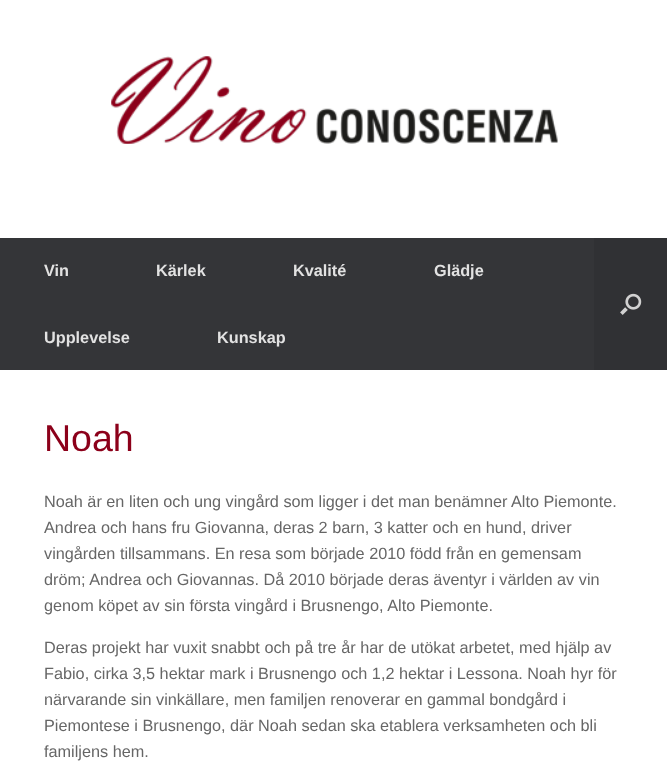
<svg xmlns="http://www.w3.org/2000/svg" width="667" height="771" viewBox="0 0 667 771">
  <rect width="100%" height="100%" fill="rgb(255,255,255)"/>
  <image x="111" y="56" width="447" height="88" href="pic1.png"/>
  <rect x="0" y="238" width="594" height="132" fill="rgb(52,53,56)"/>
  <g font-family="Liberation Sans" font-size="16.25" font-weight="bold" fill="rgb(226,226,226)">
    <text x="44" y="276">Vin</text>
    <text x="156" y="276">Kärlek</text>
    <text x="293" y="276">Kvalité</text>
    <text x="434" y="276">Glädje</text>
    <text x="44" y="343">Upplevelse</text>
    <text x="217" y="343">Kunskap</text>
  </g>
  <rect x="594" y="238" width="73" height="132" fill="rgb(48,49,52)"/>
  <image x="620" y="293" width="22" height="22" href="pic2.png"/>
  <text x="44" y="451" font-family="Liberation Sans" font-size="37.5" fill="rgb(140,0,26)">Noah</text>
  <g font-family="Liberation Sans" font-size="16.25" fill="rgb(102,102,102)">
    <text>
      <tspan x="44" y="507">Noah är en liten och ung vingård som ligger i det man benämner Alto Piemonte.</tspan>
      <tspan x="44" y="533">Andrea och hans fru Giovanna, deras 2 barn, 3 katter och en hund, driver</tspan>
      <tspan x="44" y="559">vingården tillsammans. En resa som började 2010 född från en gemensam</tspan>
      <tspan x="44" y="585">dröm; Andrea och Giovannas. Då 2010 började deras äventyr i världen av vin</tspan>
      <tspan x="44" y="611">genom köpet av sin första vingård i Brusnengo, Alto Piemonte.</tspan>
    </text>
    <text>
      <tspan x="44" y="653">Deras projekt har vuxit snabbt och på tre år har de utökat arbetet, med hjälp av</tspan>
      <tspan x="44" y="679">Fabio, cirka 3,5 hektar mark i Brusnengo och 1,2 hektar i Lessona. Noah hyr för</tspan>
      <tspan x="44" y="705">närvarande sin vinkällare, men familjen renoverar en gammal bondgård i</tspan>
      <tspan x="44" y="731">Piemontese i Brusnengo, där Noah sedan ska etablera verksamheten och bli</tspan>
      <tspan x="44" y="757">familjens hem.</tspan>
    </text>
  </g>
</svg>
